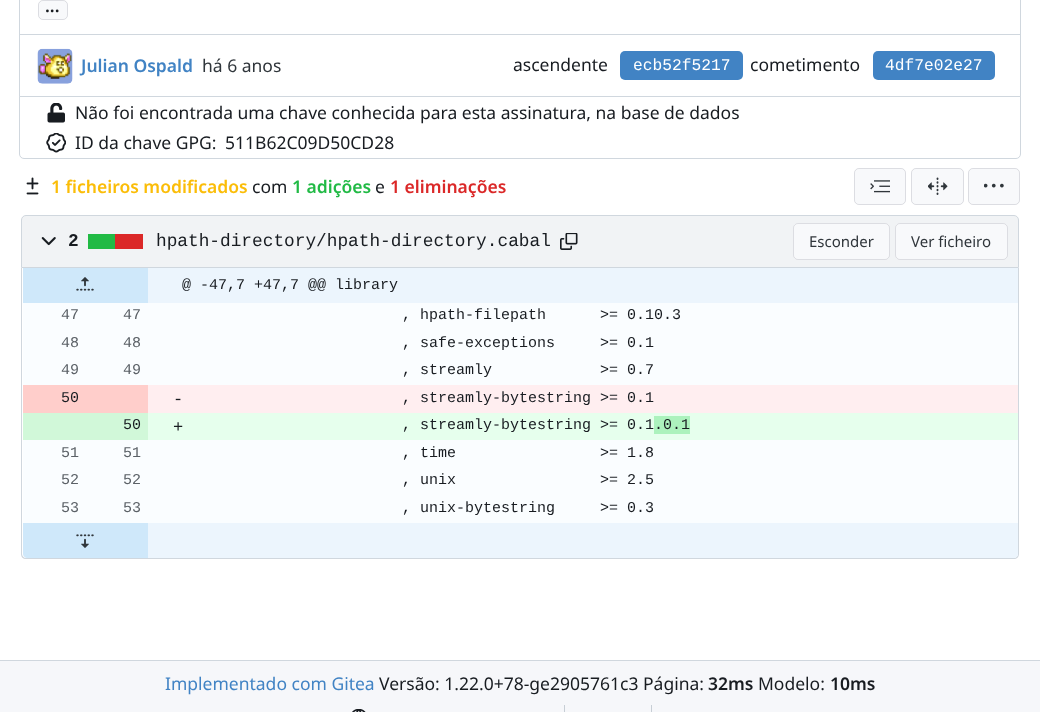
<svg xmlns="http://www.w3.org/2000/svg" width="1040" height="712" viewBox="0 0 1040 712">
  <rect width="100%" height="100%" fill="rgb(255,255,255)"/>
  <rect x="19.5" y="-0.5" width="1001" height="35" fill="none" stroke="rgb(208,215,222)"/>
  <rect x="38" y="0" width="30" height="20" rx="5" fill="rgb(248,249,251)"/>
  <rect x="38.5" y="0.5" width="29" height="19" rx="4.5" fill="none" stroke="rgba(0,0,23,0.11)"/>
  <text x="45" y="12" font-family="Noto Sans" font-size="17.5" font-weight="600" fill="rgb(24,28,33)">...</text>
  <rect x="1020" y="35" width="1" height="63" fill="rgb(208,215,222)"/>
  <rect x="19" y="35" width="1" height="63" fill="rgb(208,215,222)"/>
  <image x="37" y="48" width="36" height="36" href="pic1.png"/>
  <text x="81" y="72" font-family="Noto Sans" font-size="17.5" font-weight="600" fill="rgb(65,131,196)">Julian Ospald</text>
  <text x="202" y="72" font-family="Noto Sans" font-size="17.5" fill="rgb(48,54,59)">há 6 anos</text>
  <text x="513" y="71" font-family="Noto Sans" font-size="17.5" fill="rgb(24,28,33)">ascendente</text>
  <rect x="620" y="51" width="123" height="29" rx="5" fill="rgb(65,131,196)"/>
  <text x="633" y="70" font-family="Liberation Mono" font-size="16.25" fill="rgb(255,255,255)">ecb52f5217</text>
  <text x="750" y="71" font-family="Noto Sans" font-size="17.5" fill="rgb(24,28,33)">cometimento</text>
  <rect x="873" y="51" width="122" height="29" rx="5" fill="rgb(65,131,196)"/>
  <text x="885" y="70" font-family="Liberation Mono" font-size="16.25" fill="rgb(255,255,255)">4df7e02e27</text>
  <path d="M19.5 96.5H1020.5V154C1020.5 156.5 1018.5 158.5 1016 158.5H24C21.5 158.5 19.5 156.5 19.5 154Z" fill="rgb(255,255,255)" stroke="rgb(208,215,222)"/>
  <image x="47" y="103" width="18" height="20" href="pic2.png"/>
  <text x="75" y="119" font-family="Noto Sans" font-size="17.5" fill="rgb(24,28,33)">Não foi encontrada uma chave conhecida para esta assinatura, na base de dados</text>
  <image x="46" y="133" width="20" height="20" href="pic3.png"/>
  <g font-family="Noto Sans" font-size="17.5" fill="rgb(24,28,33)">
    <text x="75" y="149">ID da chave GPG:</text>
    <text x="225" y="149">511B62C09D50CD28</text>
  </g>
  <image x="26" y="177" width="13" height="18" href="pic4.png"/>
  <text x="51" y="193" font-family="Noto Sans" font-size="17.5" font-weight="600" fill="rgb(251,189,8)">1 ficheiros modificados</text>
  <text x="252" y="193" font-family="Noto Sans" font-size="17.5" fill="rgb(24,28,33)">com</text>
  <text x="292" y="193" font-family="Noto Sans" font-size="17.5" font-weight="600" fill="rgb(33,186,69)">1 adições</text>
  <text x="375" y="193" font-family="Noto Sans" font-size="17.5" fill="rgb(24,28,33)">e</text>
  <text x="390" y="193" font-family="Noto Sans" font-size="17.5" font-weight="600" fill="rgb(219,40,40)">1 eliminações</text>
  <rect x="854" y="168" width="52" height="37" rx="5" fill="rgb(248,249,251)"/>
  <rect x="854.5" y="168.5" width="51" height="36" rx="4.5" fill="none" stroke="rgba(0,0,23,0.11)"/>
  <image x="870" y="180" width="20" height="13" href="pic5.png"/>
  <rect x="911" y="168" width="53" height="37" rx="5" fill="rgb(248,249,251)"/>
  <rect x="911.5" y="168.5" width="52" height="36" rx="4.5" fill="none" stroke="rgba(0,0,23,0.11)"/>
  <image x="928" y="177" width="20" height="18" href="pic6.png"/>
  <rect x="968" y="168" width="52" height="37" rx="5" fill="rgb(248,249,251)"/>
  <rect x="968.5" y="168.5" width="51" height="36" rx="4.5" fill="none" stroke="rgba(0,0,23,0.11)"/>
  <image x="984" y="183" width="20" height="5" href="pic7.png"/>
  <path d="M26 215.5H1014C1016.5 215.5 1018.5 217.5 1018.5 220V267.5H21.5V220C21.5 217.5 23.5 215.5 26 215.5Z" fill="rgb(241,243,245)" stroke="rgb(208,215,222)"/>
  <image x="41" y="237" width="15" height="9" href="pic8.png"/>
  <text x="68" y="246" font-family="Liberation Mono" font-size="17.8" font-weight="bold" fill="rgb(24,28,33)">2</text>
  <rect x="115" y="234" width="28" height="15" fill="rgb(219,40,40)"/>
  <rect x="88" y="234" width="27" height="15" fill="rgb(33,186,69)"/>
  <text x="156" y="246" font-family="Liberation Mono" font-size="17.8" fill="rgb(24,28,33)">hpath-directory/hpath-directory.cabal</text>
  <image x="560" y="233" width="18" height="17" href="pic9.png"/>
  <rect x="793" y="223" width="97" height="37" rx="5" fill="rgb(248,249,251)"/>
  <rect x="793.5" y="223.5" width="96" height="36" rx="4.5" fill="none" stroke="rgba(0,0,23,0.11)"/>
  <text x="809" y="247" font-family="Noto Sans" font-size="15" fill="rgb(48,54,59)">Esconder</text>
  <rect x="895" y="223" width="113" height="37" rx="5" fill="rgb(248,249,251)"/>
  <rect x="895.5" y="223.5" width="112" height="36" rx="4.5" fill="none" stroke="rgba(0,0,23,0.11)"/>
  <text x="911" y="247" font-family="Noto Sans" font-size="15" fill="rgb(48,54,59)">Ver ficheiro</text>
  <path d="M21 268H1019V554C1019 557 1017 559 1014 559H26C23 559 21 557 21 554ZM22 268H1018V554C1018 556 1016 558 1014 558H26C24 558 22 556 22 554Z" fill="rgb(208,215,222)" fill-rule="evenodd"/>
  <rect x="23" y="268" width="995" height="290" rx="5" fill="rgb(250,253,255)"/>
  <rect x="148" y="268" width="870" height="35" fill="rgb(236,245,253)"/>
  <rect x="23" y="268" width="125" height="35" fill="rgb(207,232,250)"/>
  <image x="76" y="277" width="18" height="14" href="pic10.png"/>
  <text x="182" y="289" font-family="Liberation Mono" font-size="15" fill="rgb(24,28,33)">@ -47,7 +47,7 @@ library</text>
  <g font-family="Liberation Mono" font-size="15" fill="rgb(91,97,103)">
    <text x="61" y="319">47</text>
    <text x="123" y="319">47</text>
  </g>
  <text x="402" y="319" font-family="Liberation Mono" font-size="15" fill="rgb(24,28,33)" xml:space="preserve">, hpath-filepath      &gt;= 0.10.3</text>
  <g font-family="Liberation Mono" font-size="15" fill="rgb(91,97,103)">
    <text x="61" y="347">48</text>
    <text x="123" y="347">48</text>
  </g>
  <text x="402" y="347" font-family="Liberation Mono" font-size="15" fill="rgb(24,28,33)" xml:space="preserve">, safe-exceptions     &gt;= 0.1</text>
  <g font-family="Liberation Mono" font-size="15" fill="rgb(91,97,103)">
    <text x="61" y="374">49</text>
    <text x="123" y="374">49</text>
  </g>
  <text x="402" y="374" font-family="Liberation Mono" font-size="15" fill="rgb(24,28,33)" xml:space="preserve">, streamly            &gt;= 0.7</text>
  <rect x="148" y="385" width="870" height="28" fill="rgb(255,238,240)"/>
  <rect x="23" y="385" width="125" height="28" fill="rgb(255,206,203)"/>
  <text x="61" y="402" font-family="Liberation Mono" font-size="15" fill="rgb(24,28,33)">50</text>
  <text x="173" y="404" font-family="Liberation Mono" font-size="17" fill="rgb(24,28,33)">-</text>
  <text x="402" y="402" font-family="Liberation Mono" font-size="15" fill="rgb(24,28,33)">, streamly-bytestring &gt;= 0.1</text>
  <rect x="148" y="413" width="870" height="27" fill="rgb(230,255,237)"/>
  <rect x="23" y="413" width="125" height="27" fill="rgb(209,248,217)"/>
  <text x="123" y="429" font-family="Liberation Mono" font-size="15" fill="rgb(24,28,33)">50</text>
  <text x="173" y="432" font-family="Liberation Mono" font-size="17" fill="rgb(24,28,33)">+</text>
  <text x="402" y="429" font-family="Liberation Mono" font-size="15" fill="rgb(24,28,33)">, streamly-bytestring &gt;= 0.1</text>
  <rect x="654" y="416" width="36" height="18" fill="rgb(172,242,189)"/>
  <text x="654" y="429" font-family="Liberation Mono" font-size="15" fill="rgb(24,28,33)">.0.1</text>
  <g font-family="Liberation Mono" font-size="15" fill="rgb(91,97,103)">
    <text x="61" y="457">51</text>
    <text x="123" y="457">51</text>
  </g>
  <text x="402" y="457" font-family="Liberation Mono" font-size="15" fill="rgb(24,28,33)" xml:space="preserve">, time                &gt;= 1.8</text>
  <g font-family="Liberation Mono" font-size="15" fill="rgb(91,97,103)">
    <text x="61" y="484">52</text>
    <text x="123" y="484">52</text>
  </g>
  <text x="402" y="484" font-family="Liberation Mono" font-size="15" fill="rgb(24,28,33)" xml:space="preserve">, unix                &gt;= 2.5</text>
  <g font-family="Liberation Mono" font-size="15" fill="rgb(91,97,103)">
    <text x="61" y="512">53</text>
    <text x="123" y="512">53</text>
  </g>
  <text x="402" y="512" font-family="Liberation Mono" font-size="15" fill="rgb(24,28,33)" xml:space="preserve">, unix-bytestring     &gt;= 0.3</text>
  <path d="M23 523H148V558H27C25 558 23 556 23 554Z" fill="rgb(207,232,250)"/>
  <image x="76" y="534" width="18" height="14" href="pic11.png"/>
  <rect x="148" y="523" width="35" height="35" fill="rgb(236,245,253)"/>
  <path d="M183 523H1018V554C1018 556 1016 558 1014 558H183Z" fill="rgb(236,245,253)"/>
  <rect x="0" y="661" width="1040" height="51" fill="rgb(246,247,250)"/>
  <rect x="0" y="660" width="1040" height="1" fill="rgb(208,215,222)"/>
  <text x="165" y="690" font-family="Noto Sans" font-size="17.5" fill="rgb(65,131,196)">Implementado com Gitea</text>
  <text x="379" y="690" font-family="Noto Sans" font-size="17.5" fill="rgb(24,28,33)">Versão: 1.22.0+78-ge2905761c3 Página:</text>
  <text x="708" y="690" font-family="Noto Sans" font-size="17.5" font-weight="600" fill="rgb(24,28,33)">32ms</text>
  <text x="758" y="690" font-family="Noto Sans" font-size="17.5" fill="rgb(24,28,33)">Modelo:</text>
  <text x="830" y="690" font-family="Noto Sans" font-size="17.5" font-weight="600" fill="rgb(24,28,33)">10ms</text>
  <image x="352" y="709" width="14" height="3" href="pic12.png"/>
  <rect x="564" y="705" width="1" height="7" fill="rgb(199,206,213)"/>
  <rect x="651" y="705" width="1" height="7" fill="rgb(199,206,213)"/>
</svg>
